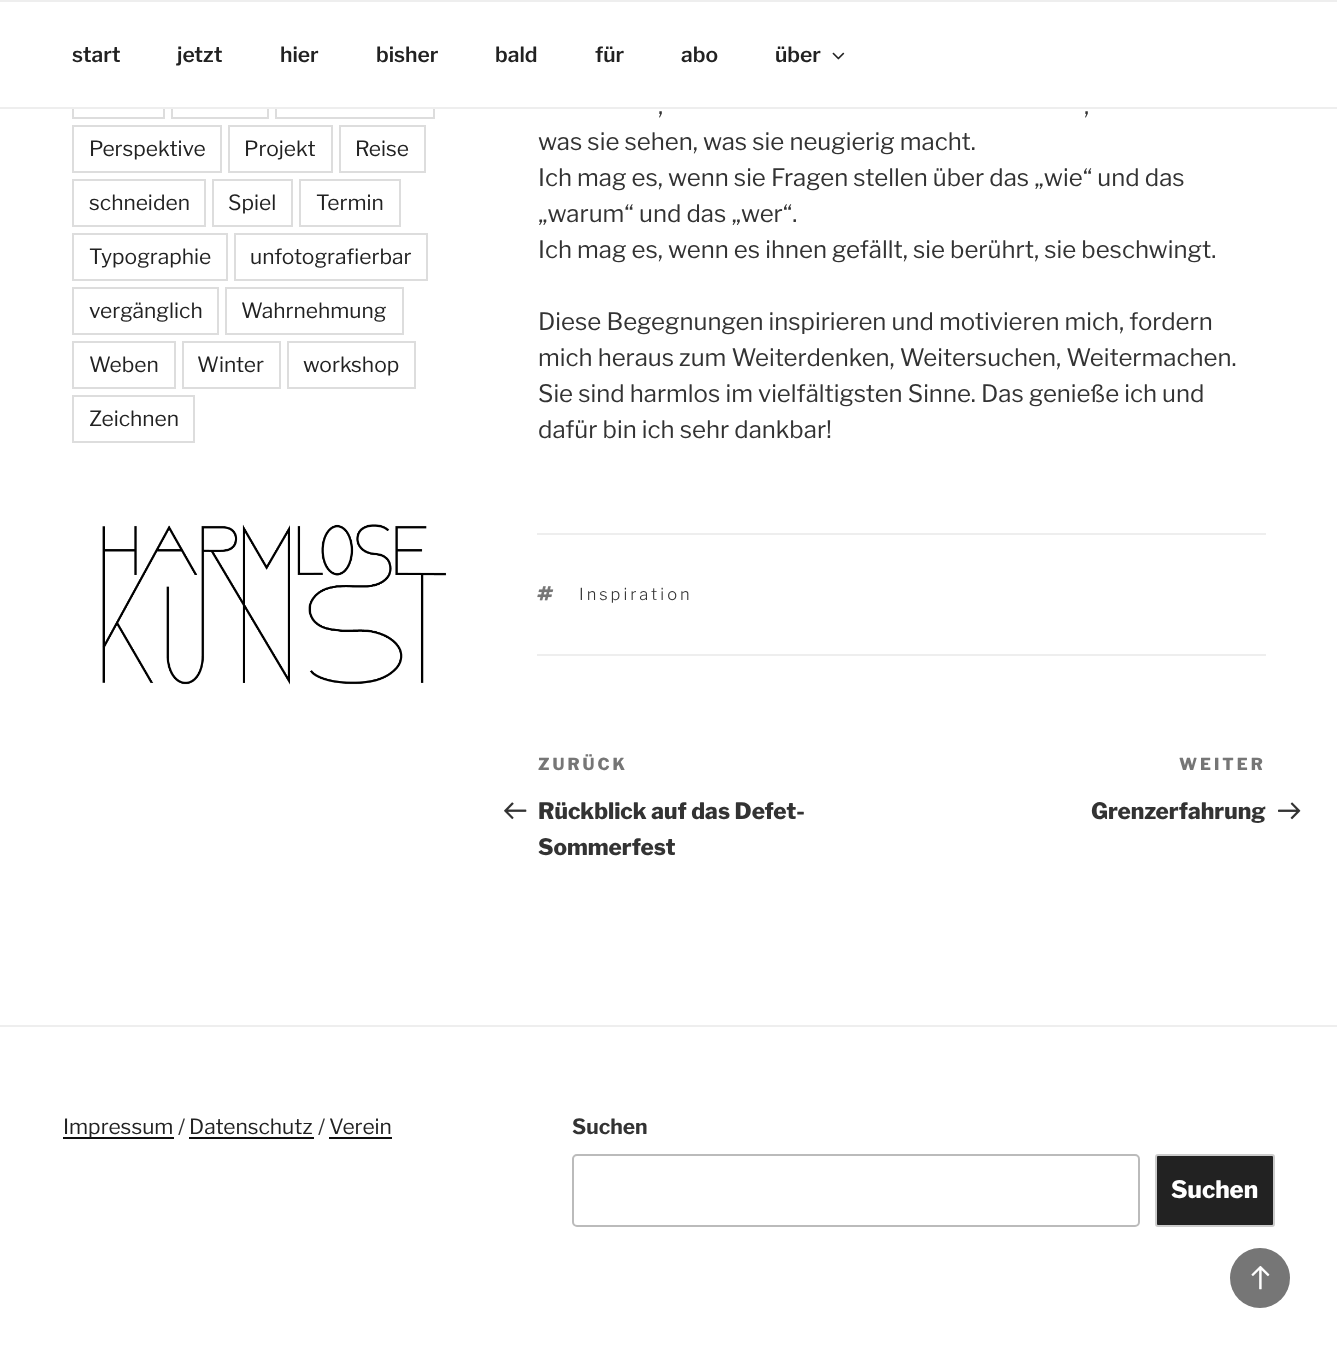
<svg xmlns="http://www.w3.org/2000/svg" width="1337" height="1356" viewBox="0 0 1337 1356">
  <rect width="100%" height="100%" fill="rgb(255,255,255)"/>
  <rect x="73" y="72" width="91" height="46" fill="none" stroke="rgb(221,221,221)" stroke-width="2"/>
  <rect x="172" y="72" width="96" height="46" fill="none" stroke="rgb(221,221,221)" stroke-width="2"/>
  <rect x="276" y="72" width="158" height="46" fill="none" stroke="rgb(221,221,221)" stroke-width="2"/>
  <rect x="72" y="71" width="363" height="36" fill="rgb(255,255,255)"/>
  <rect x="0" y="0" width="1337" height="2" fill="rgb(238,238,238)"/>
  <rect x="0" y="107" width="1337" height="2" fill="rgb(238,238,238)"/>
  <g font-family="'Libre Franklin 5'" font-size="21" font-weight="100" fill="rgb(34,34,34)">
    <text x="72" y="62">start</text>
    <text x="177" y="62">jetzt</text>
    <text x="280" y="62">hier</text>
    <text x="376" y="62">bisher</text>
    <text x="495" y="62">bald</text>
    <text x="595" y="62">für</text>
    <text x="681" y="62">abo</text>
    <text x="775" y="62">über</text>
  </g>
  <image x="832" y="52" width="13" height="8" href="pic1.png"/>
  <rect x="73" y="126" width="148" height="46" fill="none" stroke="rgb(221,221,221)" stroke-width="2"/>
  <text x="89" y="156" font-family="'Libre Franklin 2'" font-size="21" font-weight="100" fill="rgb(34,34,34)">Perspektive</text>
  <rect x="229" y="126" width="103" height="46" fill="none" stroke="rgb(221,221,221)" stroke-width="2"/>
  <text x="244" y="156" font-family="'Libre Franklin 2'" font-size="21" font-weight="100" fill="rgb(34,34,34)">Projekt</text>
  <rect x="340" y="126" width="85" height="46" fill="none" stroke="rgb(221,221,221)" stroke-width="2"/>
  <text x="355" y="156" font-family="'Libre Franklin 2'" font-size="21" font-weight="100" fill="rgb(34,34,34)">Reise</text>
  <rect x="73" y="180" width="132" height="46" fill="none" stroke="rgb(221,221,221)" stroke-width="2"/>
  <text x="89" y="210" font-family="'Libre Franklin 2'" font-size="21" font-weight="100" fill="rgb(34,34,34)">schneiden</text>
  <rect x="213" y="180" width="79" height="46" fill="none" stroke="rgb(221,221,221)" stroke-width="2"/>
  <text x="228" y="210" font-family="'Libre Franklin 2'" font-size="21" font-weight="100" fill="rgb(34,34,34)">Spiel</text>
  <rect x="300" y="180" width="100" height="46" fill="none" stroke="rgb(221,221,221)" stroke-width="2"/>
  <text x="316" y="210" font-family="'Libre Franklin 2'" font-size="21" font-weight="100" fill="rgb(34,34,34)">Termin</text>
  <rect x="73" y="234" width="154" height="46" fill="none" stroke="rgb(221,221,221)" stroke-width="2"/>
  <text x="89" y="264" font-family="'Libre Franklin 2'" font-size="21" font-weight="100" fill="rgb(34,34,34)">Typographie</text>
  <rect x="235" y="234" width="192" height="46" fill="none" stroke="rgb(221,221,221)" stroke-width="2"/>
  <text x="250" y="264" font-family="'Libre Franklin 2'" font-size="21" font-weight="100" fill="rgb(34,34,34)">unfotografierbar</text>
  <rect x="73" y="288" width="145" height="46" fill="none" stroke="rgb(221,221,221)" stroke-width="2"/>
  <text x="89" y="318" font-family="'Libre Franklin 2'" font-size="21" font-weight="100" fill="rgb(34,34,34)">vergänglich</text>
  <rect x="226" y="288" width="177" height="46" fill="none" stroke="rgb(221,221,221)" stroke-width="2"/>
  <text x="241" y="318" font-family="'Libre Franklin 2'" font-size="21" font-weight="100" fill="rgb(34,34,34)">Wahrnehmung</text>
  <rect x="73" y="342" width="102" height="46" fill="none" stroke="rgb(221,221,221)" stroke-width="2"/>
  <text x="89" y="372" font-family="'Libre Franklin 2'" font-size="21" font-weight="100" fill="rgb(34,34,34)">Weben</text>
  <rect x="183" y="342" width="97" height="46" fill="none" stroke="rgb(221,221,221)" stroke-width="2"/>
  <text x="197" y="372" font-family="'Libre Franklin 2'" font-size="21" font-weight="100" fill="rgb(34,34,34)">Winter</text>
  <rect x="288" y="342" width="127" height="46" fill="none" stroke="rgb(221,221,221)" stroke-width="2"/>
  <text x="303" y="372" font-family="'Libre Franklin 2'" font-size="21" font-weight="100" fill="rgb(34,34,34)">workshop</text>
  <rect x="73" y="396" width="121" height="46" fill="none" stroke="rgb(221,221,221)" stroke-width="2"/>
  <text x="89" y="426" font-family="'Libre Franklin 2'" font-size="21" font-weight="100" fill="rgb(34,34,34)">Zeichnen</text>
  <image x="102" y="524" width="345" height="161" href="pic2.png"/>
  <g font-family="'Libre Franklin 2'" font-size="24" font-weight="100" fill="rgb(51,51,51)">
    <text x="658" y="114">,</text>
    <text x="1084" y="114">,</text>
    <text>
      <tspan x="538" y="150">was sie sehen, was sie neugierig macht.</tspan>
      <tspan x="538" y="186">Ich mag es, wenn sie Fragen stellen über das „wie“ und das</tspan>
      <tspan x="538" y="222">„warum“ und das „wer“.</tspan>
      <tspan x="538" y="258">Ich mag es, wenn es ihnen gefällt, sie berührt, sie beschwingt.</tspan>
    </text>
    <text>
      <tspan x="538" y="330">Diese Begegnungen inspirieren und motivieren mich, fordern</tspan>
      <tspan x="538" y="366">mich heraus zum Weiterdenken, Weitersuchen, Weitermachen.</tspan>
      <tspan x="538" y="402">Sie sind harmlos im vielfältigsten Sinne. Das genieße ich und</tspan>
      <tspan x="538" y="438">dafür bin ich sehr dankbar!</tspan>
    </text>
  </g>
  <rect x="537" y="533" width="729" height="2" fill="rgb(238,238,238)"/>
  <rect x="537" y="654" width="729" height="2" fill="rgb(238,238,238)"/>
  <image x="537" y="586" width="17" height="15" href="pic3.png"/>
  <text x="579" y="600" font-family="'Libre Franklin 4'" font-size="16.5" font-weight="100" letter-spacing="3" fill="rgb(51,51,51)">Inspiration</text>
  <text x="538" y="770" font-family="Libre Franklin" font-size="16.5" font-weight="100" letter-spacing="3" fill="rgb(118,118,118)">ZURÜCK</text>
  <image x="504" y="802" width="23" height="18" href="pic4.png"/>
  <g font-family="Libre Franklin" font-size="22.5" font-weight="100" fill="rgb(51,51,51)">
    <text>
      <tspan x="538" y="819">Rückblick auf das Defet-</tspan>
      <tspan x="538" y="855">Sommerfest</tspan>
    </text>
  </g>
  <text x="1179" y="770" font-family="Libre Franklin" font-size="16.5" font-weight="100" letter-spacing="3" fill="rgb(118,118,118)">WEITER</text>
  <text x="1091" y="819" font-family="Libre Franklin" font-size="22.5" font-weight="100" fill="rgb(51,51,51)">Grenzerfahrung</text>
  <image x="1278" y="802" width="23" height="18" href="pic5.png"/>
  <circle cx="1260" cy="1278" r="30" fill="rgb(118,118,118)"/>
  <image x="1251" y="1266" width="19" height="24" href="pic6.png"/>
  <rect x="0" y="1025" width="1337" height="2" fill="rgb(238,238,238)"/>
  <rect x="63" y="1137" width="111" height="2" fill="rgb(15,15,15)"/>
  <text x="63" y="1134" font-family="'Libre Franklin 2'" font-size="21" font-weight="100" fill="rgb(34,34,34)">Impressum</text>
  <text x="178" y="1134" font-family="'Libre Franklin 2'" font-size="21" font-weight="100" fill="rgb(51,51,51)">/</text>
  <text x="189" y="1134" font-family="'Libre Franklin 2'" font-size="21" font-weight="100" fill="rgb(34,34,34)">Datenschutz</text>
  <rect x="189" y="1137" width="125" height="2" fill="rgb(15,15,15)"/>
  <text x="318" y="1134" font-family="'Libre Franklin 2'" font-size="21" font-weight="100" fill="rgb(51,51,51)">/</text>
  <text x="329" y="1134" font-family="'Libre Franklin 2'" font-size="21" font-weight="100" fill="rgb(34,34,34)">Verein</text>
  <rect x="329" y="1137" width="63" height="2" fill="rgb(15,15,15)"/>
  <text x="572" y="1134" font-family="'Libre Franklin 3'" font-size="21" font-weight="100" fill="rgb(51,51,51)">Suchen</text>
  <rect x="573" y="1155" width="566" height="71" rx="4" fill="none" stroke="rgb(187,187,187)" stroke-width="2"/>
  <rect x="1156" y="1155" width="118" height="71" rx="2" fill="rgb(34,34,34)" stroke="rgb(204,204,204)" stroke-width="2"/>
  <text x="1171" y="1198" font-family="Libre Franklin" font-size="24" font-weight="100" fill="rgb(255,255,255)">Suchen</text>
</svg>
